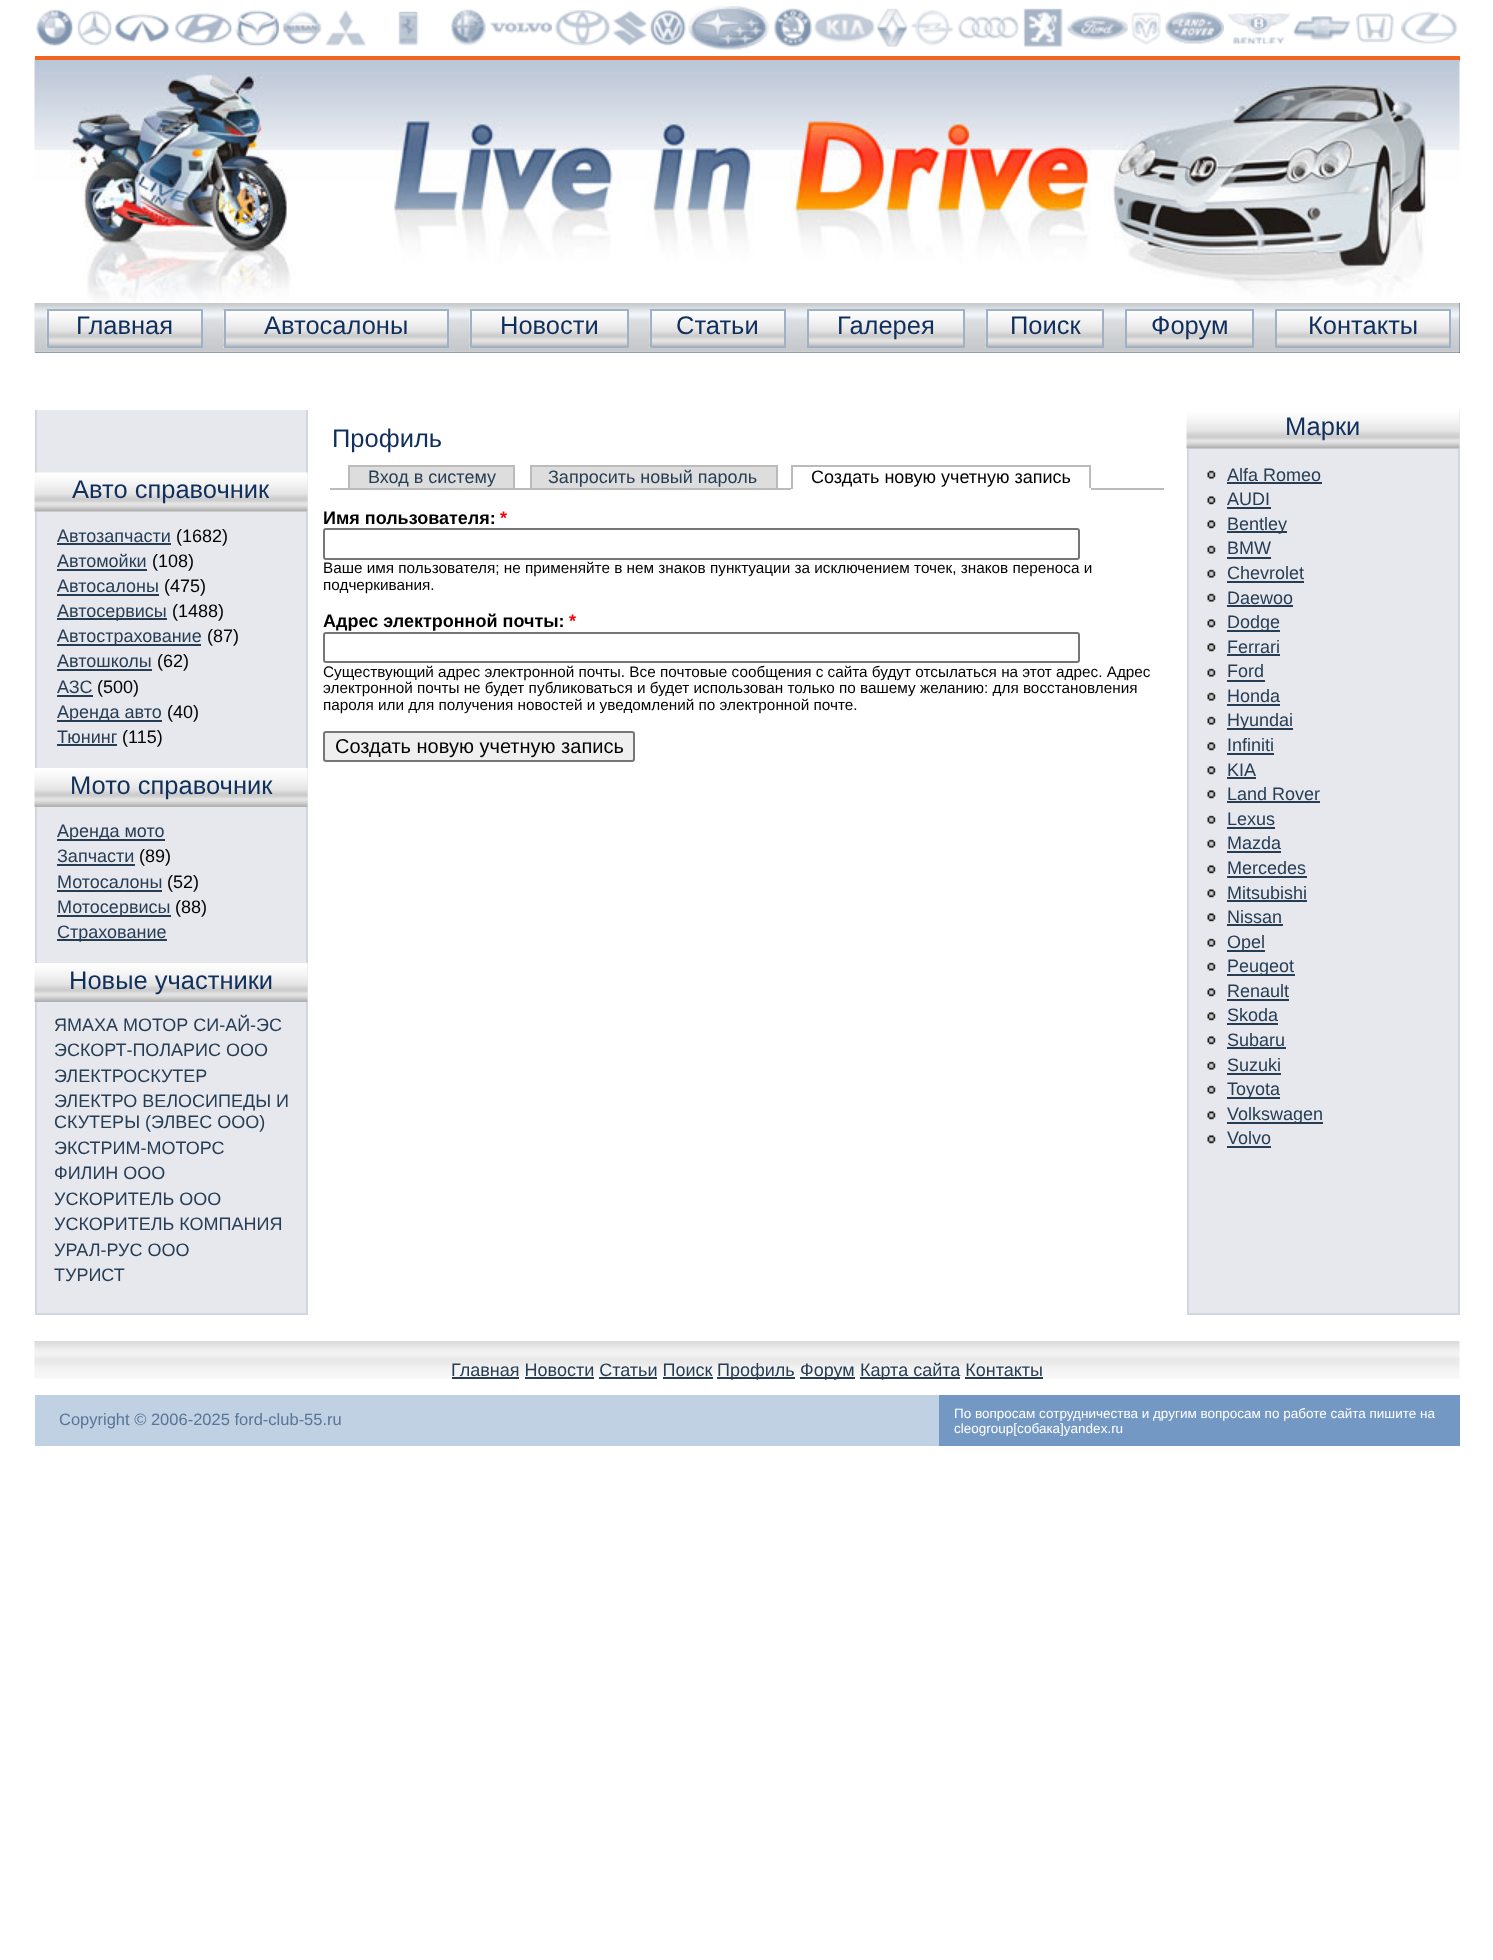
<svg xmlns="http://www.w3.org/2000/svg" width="1493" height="1960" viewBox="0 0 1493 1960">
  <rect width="100%" height="100%" fill="rgb(255,255,255)"/>
  <image x="36" y="9" width="38" height="38" href="pic1.png"/>
  <image x="76" y="10" width="37" height="36" href="pic2.png"/>
  <image x="115" y="13" width="55" height="30" href="pic3.png"/>
  <image x="174" y="13" width="59" height="31" href="pic4.png"/>
  <image x="235" y="10" width="44" height="37" href="pic5.png"/>
  <image x="282" y="10" width="40" height="35" href="pic6.png"/>
  <image x="325" y="10" width="41" height="36" href="pic7.png"/>
  <image x="398" y="11" width="21" height="35" href="pic8.png"/>
  <image x="451" y="9" width="35" height="37" href="pic9.png"/>
  <image x="490" y="22" width="62" height="12" href="pic10.png"/>
  <image x="555" y="10" width="56" height="36" href="pic11.png"/>
  <image x="613" y="10" width="34" height="36" href="pic12.png"/>
  <image x="649" y="10" width="37" height="36" href="pic13.png"/>
  <image x="688" y="6" width="82" height="44" href="pic14.png"/>
  <image x="774" y="8" width="38" height="39" href="pic15.png"/>
  <image x="814" y="13" width="61" height="30" href="pic16.png"/>
  <image x="877" y="8" width="31" height="39" href="pic17.png"/>
  <image x="910" y="10" width="44" height="36" href="pic18.png"/>
  <image x="958" y="16" width="61" height="23" href="pic19.png"/>
  <image x="1023" y="8" width="40" height="39" href="pic20.png"/>
  <image x="1066" y="15" width="62" height="26" href="pic21.png"/>
  <image x="1131" y="12" width="30" height="33" href="pic22.png"/>
  <image x="1165" y="11" width="59" height="33" href="pic23.png"/>
  <image x="1227" y="13" width="63" height="31" href="pic24.png"/>
  <image x="1293" y="16" width="57" height="25" href="pic25.png"/>
  <image x="1356" y="13" width="38" height="30" href="pic26.png"/>
  <image x="1401" y="11" width="57" height="33" href="pic27.png"/>
  <rect x="35" y="56" width="1425" height="5" fill="rgb(242,101,33)"/>
  <image x="34" y="60" width="1426" height="243" href="pic28.png"/>
  <rect x="35" y="303" width="1425" height="50" fill="rgb(82,109,149)"/>
  <image x="34" y="303" width="1426" height="50" href="pic29.png"/>
  <image x="46" y="309" width="155" height="39" href="pic30.png"/>
  <rect x="48" y="310" width="154" height="37" fill="none" stroke="rgb(160,176,199)" stroke-width="2"/>
  <text x="76" y="334" font-family="Liberation Sans" font-size="25.5" fill="rgb(16,47,92)">Главная</text>
  <image x="223" y="309" width="224" height="39" href="pic31.png"/>
  <rect x="225" y="310" width="223" height="37" fill="none" stroke="rgb(160,176,199)" stroke-width="2"/>
  <text x="264" y="334" font-family="Liberation Sans" font-size="25.5" fill="rgb(16,47,92)">Автосалоны</text>
  <image x="469" y="309" width="158" height="39" href="pic32.png"/>
  <rect x="471" y="310" width="157" height="37" fill="none" stroke="rgb(160,176,199)" stroke-width="2"/>
  <text x="500" y="334" font-family="Liberation Sans" font-size="25.5" fill="rgb(16,47,92)">Новости</text>
  <image x="649" y="309" width="135" height="39" href="pic33.png"/>
  <rect x="651" y="310" width="134" height="37" fill="none" stroke="rgb(160,176,199)" stroke-width="2"/>
  <text x="676" y="334" font-family="Liberation Sans" font-size="25.5" fill="rgb(16,47,92)">Статьи</text>
  <image x="809" y="311" width="154" height="35" href="pic34.png"/>
  <rect x="808" y="310" width="156" height="37" fill="none" stroke="rgb(160,176,199)" stroke-width="2"/>
  <text x="837" y="334" font-family="Liberation Sans" font-size="25.5" fill="rgb(16,47,92)">Галерея</text>
  <image x="985" y="309" width="117" height="39" href="pic35.png"/>
  <rect x="987" y="310" width="116" height="37" fill="none" stroke="rgb(160,176,199)" stroke-width="2"/>
  <text x="1010" y="334" font-family="Liberation Sans" font-size="25.5" fill="rgb(16,47,92)">Поиск</text>
  <image x="1127" y="311" width="125" height="35" href="pic36.png"/>
  <rect x="1126" y="310" width="127" height="37" fill="none" stroke="rgb(160,176,199)" stroke-width="2"/>
  <text x="1151" y="334" font-family="Liberation Sans" font-size="25.5" fill="rgb(16,47,92)">Форум</text>
  <image x="1277" y="311" width="172" height="35" href="pic37.png"/>
  <rect x="1276" y="310" width="174" height="37" fill="none" stroke="rgb(160,176,199)" stroke-width="2"/>
  <text x="1308" y="334" font-family="Liberation Sans" font-size="25.5" fill="rgb(16,47,92)">Контакты</text>
  <rect x="37" y="410" width="269" height="903" fill="rgb(230,232,238)"/>
  <rect x="306" y="410" width="2" height="904" fill="rgb(207,215,226)"/>
  <rect x="35" y="1313" width="273" height="2" fill="rgb(207,215,226)"/>
  <rect x="35" y="410" width="2" height="904" fill="rgb(207,215,226)"/>
  <rect x="35" y="473" width="273" height="39" fill="rgb(228,228,228)"/>
  <image x="34" y="472" width="274" height="40" href="pic38.png"/>
  <text x="72" y="498" font-family="Liberation Sans" font-size="25.5" fill="rgb(16,47,92)">Авто справочник</text>
  <text x="57" y="542" font-family="Liberation Sans" font-size="18" fill="rgb(39,61,83)">Автозапчасти</text>
  <rect x="57" y="543" width="114" height="2" fill="rgb(39,61,83)"/>
  <text x="176" y="542" font-family="Liberation Sans" font-size="18" fill="rgb(0,0,0)">(1682)</text>
  <text x="57" y="567" font-family="Liberation Sans" font-size="18" fill="rgb(39,61,83)">Автомойки</text>
  <rect x="57" y="569" width="90" height="2" fill="rgb(39,61,83)"/>
  <text x="152" y="567" font-family="Liberation Sans" font-size="18" fill="rgb(0,0,0)">(108)</text>
  <text x="57" y="592" font-family="Liberation Sans" font-size="18" fill="rgb(39,61,83)">Автосалоны</text>
  <rect x="57" y="594" width="102" height="2" fill="rgb(39,61,83)"/>
  <text x="164" y="592" font-family="Liberation Sans" font-size="18" fill="rgb(0,0,0)">(475)</text>
  <rect x="57" y="618" width="110" height="2" fill="rgb(39,61,83)"/>
  <text x="57" y="617" font-family="Liberation Sans" font-size="18" fill="rgb(39,61,83)">Автосервисы</text>
  <text x="172" y="617" font-family="Liberation Sans" font-size="18" fill="rgb(0,0,0)">(1488)</text>
  <rect x="57" y="644" width="144" height="2" fill="rgb(39,61,83)"/>
  <text x="57" y="642" font-family="Liberation Sans" font-size="18" fill="rgb(39,61,83)">Автострахование</text>
  <text x="207" y="642" font-family="Liberation Sans" font-size="18" fill="rgb(0,0,0)">(87)</text>
  <text x="57" y="667" font-family="Liberation Sans" font-size="18" fill="rgb(39,61,83)">Автошколы</text>
  <rect x="57" y="669" width="95" height="2" fill="rgb(39,61,83)"/>
  <text x="157" y="667" font-family="Liberation Sans" font-size="18" fill="rgb(0,0,0)">(62)</text>
  <text x="57" y="693" font-family="Liberation Sans" font-size="18" fill="rgb(39,61,83)">АЗС</text>
  <rect x="57" y="695" width="36" height="2" fill="rgb(39,61,83)"/>
  <text x="97" y="693" font-family="Liberation Sans" font-size="18" fill="rgb(0,0,0)">(500)</text>
  <rect x="57" y="720" width="105" height="2" fill="rgb(39,61,83)"/>
  <text x="57" y="718" font-family="Liberation Sans" font-size="18" fill="rgb(39,61,83)">Аренда авто</text>
  <text x="167" y="718" font-family="Liberation Sans" font-size="18" fill="rgb(0,0,0)">(40)</text>
  <text x="57" y="743" font-family="Liberation Sans" font-size="18" fill="rgb(39,61,83)">Тюнинг</text>
  <rect x="57" y="744" width="60" height="2" fill="rgb(39,61,83)"/>
  <text x="122" y="743" font-family="Liberation Sans" font-size="18" fill="rgb(0,0,0)">(115)</text>
  <rect x="307" y="768" width="1" height="39" fill="rgb(228,228,228)"/>
  <image x="34" y="768" width="274" height="39" href="pic39.png"/>
  <text x="70" y="794" font-family="Liberation Sans" font-size="25.5" fill="rgb(16,47,92)">Мото справочник</text>
  <rect x="57" y="839" width="108" height="2" fill="rgb(39,61,83)"/>
  <g font-family="Liberation Sans" font-size="18" fill="rgb(39,61,83)">
    <text>
      <tspan x="57" y="837">Аренда мото</tspan>
      <tspan x="57" y="862">Запчасти</tspan>
    </text>
  </g>
  <rect x="57" y="864" width="78" height="2" fill="rgb(39,61,83)"/>
  <text x="139" y="862" font-family="Liberation Sans" font-size="18" fill="rgb(0,0,0)">(89)</text>
  <text x="57" y="888" font-family="Liberation Sans" font-size="18" fill="rgb(39,61,83)">Мотосалоны</text>
  <rect x="57" y="890" width="105" height="2" fill="rgb(39,61,83)"/>
  <text x="167" y="888" font-family="Liberation Sans" font-size="18" fill="rgb(0,0,0)">(52)</text>
  <rect x="57" y="915" width="114" height="2" fill="rgb(39,61,83)"/>
  <text x="57" y="913" font-family="Liberation Sans" font-size="18" fill="rgb(39,61,83)">Мотосервисы</text>
  <text x="175" y="913" font-family="Liberation Sans" font-size="18" fill="rgb(0,0,0)">(88)</text>
  <rect x="57" y="939" width="110" height="2" fill="rgb(39,61,83)"/>
  <text x="57" y="938" font-family="Liberation Sans" font-size="18" fill="rgb(39,61,83)">Страхование</text>
  <rect x="307" y="963" width="1" height="39" fill="rgb(228,228,228)"/>
  <image x="34" y="963" width="274" height="39" href="pic39.png"/>
  <text x="69" y="989" font-family="Liberation Sans" font-size="25.5" fill="rgb(16,47,92)">Новые участники</text>
  <g font-family="Liberation Sans" font-size="18" fill="rgb(39,61,83)">
    <text>
      <tspan x="54" y="1031">ЯМАХА МОТОР СИ-АЙ-ЭС</tspan>
      <tspan x="54" y="1056">ЭСКОРТ-ПОЛАРИС ООО</tspan>
      <tspan x="54" y="1082">ЭЛЕКТРОСКУТЕР</tspan>
      <tspan x="54" y="1107">ЭЛЕКТРО ВЕЛОСИПЕДЫ И</tspan>
      <tspan x="54" y="1128">СКУТЕРЫ (ЭЛВЕС ООО)</tspan>
      <tspan x="54" y="1154">ЭКСТРИМ-МОТОРС</tspan>
      <tspan x="54" y="1179">ФИЛИН ООО</tspan>
      <tspan x="54" y="1205">УСКОРИТЕЛЬ ООО</tspan>
      <tspan x="54" y="1230">УСКОРИТЕЛЬ КОМПАНИЯ</tspan>
      <tspan x="54" y="1256">УРАЛ-РУС ООО</tspan>
      <tspan x="54" y="1281">ТУРИСТ</tspan>
    </text>
  </g>
  <text x="332" y="447" font-family="Liberation Sans" font-size="25.5" fill="rgb(16,47,92)">Профиль</text>
  <rect x="330" y="488" width="834" height="2" fill="rgb(187,187,187)"/>
  <rect x="350" y="467" width="163" height="21" fill="rgb(221,221,221)"/>
  <text x="368" y="483" font-family="Liberation Sans" font-size="18" fill="rgb(39,61,83)">Вход в систему</text>
  <rect x="348" y="465" width="167" height="2" fill="rgb(187,187,187)"/>
  <rect x="513" y="465" width="2" height="23" fill="rgb(187,187,187)"/>
  <rect x="348" y="465" width="2" height="23" fill="rgb(187,187,187)"/>
  <rect x="532" y="467" width="244" height="21" fill="rgb(221,221,221)"/>
  <text x="548" y="483" font-family="Liberation Sans" font-size="18" fill="rgb(39,61,83)">Запросить новый пароль</text>
  <rect x="530" y="465" width="247" height="2" fill="rgb(187,187,187)"/>
  <rect x="776" y="465" width="2" height="23" fill="rgb(187,187,187)"/>
  <rect x="530" y="465" width="2" height="23" fill="rgb(187,187,187)"/>
  <text x="811" y="483" font-family="Liberation Sans" font-size="18" fill="rgb(0,0,0)">Создать новую учетную запись</text>
  <rect x="791" y="465" width="300" height="2" fill="rgb(187,187,187)"/>
  <rect x="1089" y="465" width="2" height="24" fill="rgb(187,187,187)"/>
  <rect x="791" y="488" width="300" height="2" fill="rgb(255,255,255)"/>
  <rect x="791" y="465" width="2" height="24" fill="rgb(187,187,187)"/>
  <text x="323" y="524" font-family="Liberation Sans" font-size="18" font-weight="bold" fill="rgb(0,0,0)">Имя пользователя:</text>
  <text x="500" y="524" font-family="Liberation Sans" font-size="18" font-weight="bold" fill="rgb(255,0,0)">*</text>
  <rect x="324" y="529" width="755" height="30" rx="2" fill="none" stroke="rgb(118,118,118)" stroke-width="2"/>
  <g font-family="Liberation Sans" font-size="15.3" fill="rgb(0,0,0)">
    <text>
      <tspan x="323" y="573">Ваше имя пользователя; не применяйте в нем знаков пунктуации за исключением точек, знаков переноса и</tspan>
      <tspan x="323" y="590">подчеркивания.</tspan>
    </text>
  </g>
  <text x="323" y="627" font-family="Liberation Sans" font-size="18" font-weight="bold" fill="rgb(0,0,0)">Адрес электронной почты:</text>
  <text x="569" y="627" font-family="Liberation Sans" font-size="18" font-weight="bold" fill="rgb(255,0,0)">*</text>
  <rect x="324" y="633" width="755" height="29" rx="2" fill="none" stroke="rgb(118,118,118)" stroke-width="2"/>
  <g font-family="Liberation Sans" font-size="15.3" fill="rgb(0,0,0)">
    <text>
      <tspan x="323" y="677">Существующий адрес электронной почты. Все почтовые сообщения с сайта будут отсылаться на этот адрес. Адрес</tspan>
      <tspan x="323" y="693">электронной почты не будет публиковаться и будет использован только по вашему желанию: для восстановления</tspan>
      <tspan x="323" y="710">пароля или для получения новостей и уведомлений по электронной почте.</tspan>
    </text>
  </g>
  <rect x="324" y="732" width="310" height="29" rx="2" fill="rgb(239,239,239)" stroke="rgb(118,118,118)" stroke-width="2"/>
  <text x="335" y="753" font-family="Liberation Sans" font-size="20" fill="rgb(0,0,0)">Создать новую учетную запись</text>
  <rect x="1189" y="449" width="269" height="864" fill="rgb(230,232,238)"/>
  <rect x="1458" y="449" width="2" height="865" fill="rgb(207,215,226)"/>
  <rect x="1187" y="1313" width="273" height="2" fill="rgb(207,215,226)"/>
  <rect x="1187" y="449" width="2" height="865" fill="rgb(207,215,226)"/>
  <rect x="1187" y="410" width="273" height="39" fill="rgb(228,228,228)"/>
  <image x="1186" y="410" width="274" height="39" href="pic40.png"/>
  <text x="1285" y="435" font-family="Liberation Sans" font-size="25.5" fill="rgb(16,47,92)">Марки</text>
  <image x="1207" y="470" width="9" height="9" href="pic41.png"/>
  <text x="1227" y="481" font-family="Liberation Sans" font-size="18" fill="rgb(39,61,83)">Alfa Romeo</text>
  <rect x="1227" y="482" width="95" height="2" fill="rgb(39,61,83)"/>
  <image x="1207" y="496" width="9" height="9" href="pic42.png"/>
  <text x="1227" y="505" font-family="Liberation Sans" font-size="18" fill="rgb(39,61,83)">AUDI</text>
  <rect x="1227" y="507" width="44" height="2" fill="rgb(39,61,83)"/>
  <image x="1207" y="520" width="9" height="9" href="pic42.png"/>
  <rect x="1227" y="531" width="60" height="2" fill="rgb(39,61,83)"/>
  <text x="1227" y="530" font-family="Liberation Sans" font-size="18" fill="rgb(39,61,83)">Bentley</text>
  <image x="1207" y="545" width="9" height="9" href="pic41.png"/>
  <text x="1227" y="554" font-family="Liberation Sans" font-size="18" fill="rgb(39,61,83)">BMW</text>
  <rect x="1227" y="557" width="44" height="2" fill="rgb(39,61,83)"/>
  <image x="1207" y="569" width="9" height="9" href="pic41.png"/>
  <text x="1227" y="579" font-family="Liberation Sans" font-size="18" fill="rgb(39,61,83)">Chevrolet</text>
  <rect x="1227" y="581" width="77" height="2" fill="rgb(39,61,83)"/>
  <image x="1207" y="593" width="9" height="9" href="pic41.png"/>
  <text x="1227" y="604" font-family="Liberation Sans" font-size="18" fill="rgb(39,61,83)">Daewoo</text>
  <rect x="1227" y="605" width="66" height="2" fill="rgb(39,61,83)"/>
  <image x="1207" y="619" width="9" height="9" href="pic42.png"/>
  <rect x="1227" y="630" width="53" height="2" fill="rgb(39,61,83)"/>
  <text x="1227" y="628" font-family="Liberation Sans" font-size="18" fill="rgb(39,61,83)">Dodge</text>
  <image x="1207" y="643" width="9" height="9" href="pic42.png"/>
  <text x="1227" y="653" font-family="Liberation Sans" font-size="18" fill="rgb(39,61,83)">Ferrari</text>
  <rect x="1227" y="654" width="53" height="2" fill="rgb(39,61,83)"/>
  <image x="1207" y="668" width="9" height="9" href="pic41.png"/>
  <text x="1227" y="677" font-family="Liberation Sans" font-size="18" fill="rgb(39,61,83)">Ford</text>
  <rect x="1227" y="680" width="38" height="2" fill="rgb(39,61,83)"/>
  <image x="1207" y="692" width="9" height="9" href="pic41.png"/>
  <text x="1227" y="702" font-family="Liberation Sans" font-size="18" fill="rgb(39,61,83)">Honda</text>
  <rect x="1227" y="704" width="53" height="2" fill="rgb(39,61,83)"/>
  <image x="1207" y="716" width="9" height="9" href="pic41.png"/>
  <rect x="1227" y="728" width="66" height="2" fill="rgb(39,61,83)"/>
  <text x="1227" y="726" font-family="Liberation Sans" font-size="18" fill="rgb(39,61,83)">Hyundai</text>
  <image x="1207" y="742" width="9" height="9" href="pic42.png"/>
  <text x="1227" y="751" font-family="Liberation Sans" font-size="18" fill="rgb(39,61,83)">Infiniti</text>
  <rect x="1227" y="753" width="47" height="2" fill="rgb(39,61,83)"/>
  <image x="1207" y="766" width="9" height="9" href="pic42.png"/>
  <text x="1227" y="776" font-family="Liberation Sans" font-size="18" fill="rgb(39,61,83)">KIA</text>
  <rect x="1227" y="777" width="29" height="2" fill="rgb(39,61,83)"/>
  <image x="1207" y="790" width="9" height="9" href="pic42.png"/>
  <text x="1227" y="800" font-family="Liberation Sans" font-size="18" fill="rgb(39,61,83)">Land Rover</text>
  <rect x="1227" y="801" width="93" height="2" fill="rgb(39,61,83)"/>
  <image x="1207" y="815" width="9" height="9" href="pic41.png"/>
  <text x="1227" y="825" font-family="Liberation Sans" font-size="18" fill="rgb(39,61,83)">Lexus</text>
  <rect x="1227" y="827" width="48" height="2" fill="rgb(39,61,83)"/>
  <image x="1207" y="839" width="9" height="9" href="pic41.png"/>
  <text x="1227" y="849" font-family="Liberation Sans" font-size="18" fill="rgb(39,61,83)">Mazda</text>
  <rect x="1227" y="851" width="54" height="2" fill="rgb(39,61,83)"/>
  <image x="1207" y="865" width="9" height="9" href="pic42.png"/>
  <text x="1227" y="874" font-family="Liberation Sans" font-size="18" fill="rgb(39,61,83)">Mercedes</text>
  <rect x="1227" y="876" width="80" height="2" fill="rgb(39,61,83)"/>
  <image x="1207" y="889" width="9" height="9" href="pic42.png"/>
  <text x="1227" y="899" font-family="Liberation Sans" font-size="18" fill="rgb(39,61,83)">Mitsubishi</text>
  <rect x="1227" y="900" width="80" height="2" fill="rgb(39,61,83)"/>
  <image x="1207" y="913" width="9" height="9" href="pic42.png"/>
  <text x="1227" y="923" font-family="Liberation Sans" font-size="18" fill="rgb(39,61,83)">Nissan</text>
  <rect x="1227" y="924" width="56" height="2" fill="rgb(39,61,83)"/>
  <image x="1207" y="938" width="9" height="9" href="pic41.png"/>
  <rect x="1227" y="950" width="38" height="2" fill="rgb(39,61,83)"/>
  <text x="1227" y="948" font-family="Liberation Sans" font-size="18" fill="rgb(39,61,83)">Opel</text>
  <image x="1207" y="962" width="9" height="9" href="pic41.png"/>
  <rect x="1227" y="974" width="68" height="2" fill="rgb(39,61,83)"/>
  <text x="1227" y="972" font-family="Liberation Sans" font-size="18" fill="rgb(39,61,83)">Peugeot</text>
  <image x="1207" y="988" width="9" height="9" href="pic42.png"/>
  <text x="1227" y="997" font-family="Liberation Sans" font-size="18" fill="rgb(39,61,83)">Renault</text>
  <rect x="1227" y="999" width="62" height="2" fill="rgb(39,61,83)"/>
  <image x="1207" y="1012" width="9" height="9" href="pic42.png"/>
  <text x="1227" y="1021" font-family="Liberation Sans" font-size="18" fill="rgb(39,61,83)">Skoda</text>
  <rect x="1227" y="1023" width="51" height="2" fill="rgb(39,61,83)"/>
  <image x="1207" y="1036" width="9" height="9" href="pic42.png"/>
  <text x="1227" y="1046" font-family="Liberation Sans" font-size="18" fill="rgb(39,61,83)">Subaru</text>
  <rect x="1227" y="1047" width="59" height="2" fill="rgb(39,61,83)"/>
  <image x="1207" y="1061" width="9" height="9" href="pic41.png"/>
  <text x="1227" y="1071" font-family="Liberation Sans" font-size="18" fill="rgb(39,61,83)">Suzuki</text>
  <rect x="1227" y="1073" width="54" height="2" fill="rgb(39,61,83)"/>
  <image x="1207" y="1085" width="9" height="9" href="pic41.png"/>
  <rect x="1227" y="1097" width="53" height="2" fill="rgb(39,61,83)"/>
  <text x="1227" y="1095" font-family="Liberation Sans" font-size="18" fill="rgb(39,61,83)">Toyota</text>
  <image x="1207" y="1111" width="9" height="9" href="pic42.png"/>
  <rect x="1227" y="1122" width="96" height="2" fill="rgb(39,61,83)"/>
  <text x="1227" y="1120" font-family="Liberation Sans" font-size="18" fill="rgb(39,61,83)">Volkswagen</text>
  <image x="1207" y="1135" width="9" height="9" href="pic42.png"/>
  <text x="1227" y="1144" font-family="Liberation Sans" font-size="18" fill="rgb(39,61,83)">Volvo</text>
  <rect x="1227" y="1146" width="44" height="2" fill="rgb(39,61,83)"/>
  <image x="34" y="1341" width="1426" height="38" href="pic43.png"/>
  <text x="451" y="1376" font-family="Liberation Sans" font-size="18" fill="rgb(39,61,83)">Главная Новости Статьи Поиск</text>
  <rect x="452" y="1377" width="67" height="2" fill="rgb(39,61,83)"/>
  <rect x="525" y="1377" width="69" height="2" fill="rgb(39,61,83)"/>
  <rect x="599" y="1377" width="58" height="2" fill="rgb(39,61,83)"/>
  <rect x="663" y="1377" width="50" height="2" fill="rgb(39,61,83)"/>
  <rect x="717" y="1377" width="78" height="2" fill="rgb(39,61,83)"/>
  <text x="717" y="1376" font-family="Liberation Sans" font-size="18" fill="rgb(39,61,83)">Профиль</text>
  <rect x="800" y="1377" width="55" height="2" fill="rgb(39,61,83)"/>
  <text x="800" y="1376" font-family="Liberation Sans" font-size="18" fill="rgb(39,61,83)">Форум</text>
  <rect x="860" y="1377" width="100" height="2" fill="rgb(39,61,83)"/>
  <text x="860" y="1376" font-family="Liberation Sans" font-size="18" fill="rgb(39,61,83)">Карта сайта Контакты</text>
  <rect x="965" y="1377" width="78" height="2" fill="rgb(39,61,83)"/>
  <rect x="35" y="1395" width="904" height="51" fill="rgb(192,209,228)"/>
  <text x="59" y="1425" font-family="Liberation Sans" font-size="16.5" fill="rgb(89,117,151)">Copyright © 2006-2025 ford-club-55.ru</text>
  <rect x="939" y="1395" width="521" height="51" fill="rgb(116,152,196)"/>
  <g font-family="Liberation Sans" font-size="13.5" fill="rgb(255,255,255)">
    <text>
      <tspan x="954" y="1418">По вопросам сотрудничества и другим вопросам по работе сайта пишите на</tspan>
      <tspan x="954" y="1433">cleogroup[собака]yandex.ru</tspan>
    </text>
  </g>
</svg>
